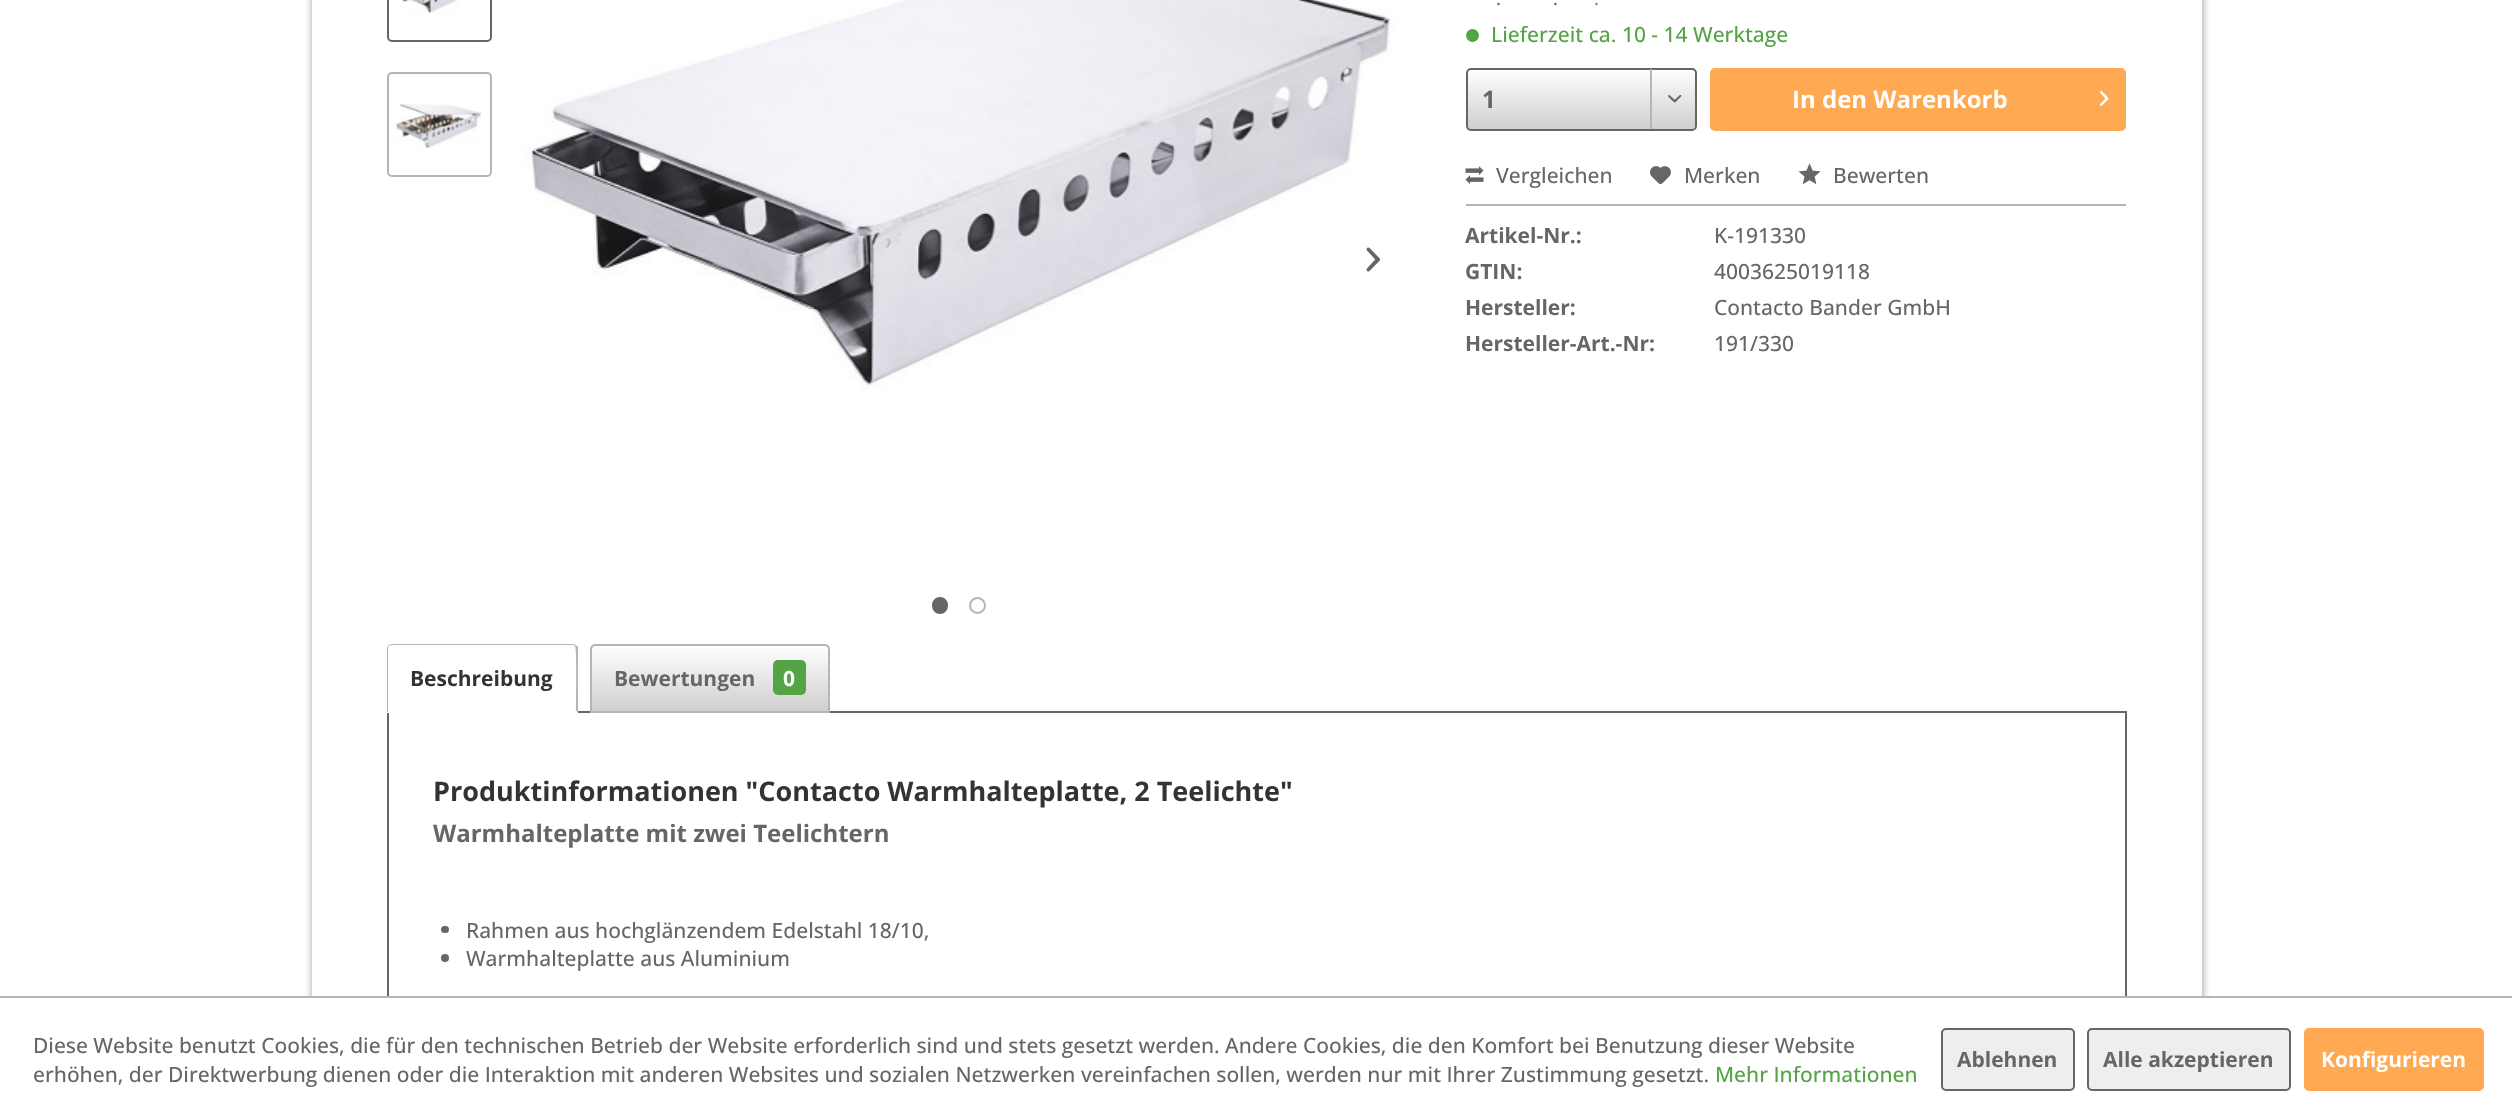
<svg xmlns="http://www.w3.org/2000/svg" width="2512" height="1120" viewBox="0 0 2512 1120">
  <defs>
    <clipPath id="clip1"><path d="M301 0H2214V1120H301ZM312-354H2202V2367H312Z" clip-rule="evenodd"/></clipPath>
    <linearGradient id="g1" gradientUnits="userSpaceOnUse" x1="1581" y1="69" x2="1581" y2="129"><stop offset="0" stop-color="rgb(255,255,255)"/><stop offset="1" stop-color="rgb(207,207,207)"/></linearGradient>
    <linearGradient id="g2" gradientUnits="userSpaceOnUse" x1="710" y1="645" x2="710" y2="711"><stop offset="0" stop-color="rgb(255,255,255)"/><stop offset="1" stop-color="rgb(207,207,207)"/></linearGradient>
  </defs>
  <rect width="100%" height="100%" fill="rgb(255,255,255)"/>
  <g clip-path="url(#clip1)">
    <rect x="311" y="-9" width="1893" height="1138" fill="rgb(181,181,181)" filter="blur(3px)"/>
  </g>
  <rect x="388" y="-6" width="103" height="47" rx="4" fill="none" stroke="rgb(102,102,102)" stroke-width="2"/>
  <image x="402" y="0" width="56" height="13" href="pic1.png"/>
  <rect x="388" y="73" width="103" height="103" rx="4" fill="none" stroke="rgb(181,181,181)" stroke-width="2"/>
  <image x="395" y="104" width="86" height="45" href="pic2.png"/>
  <image x="522" y="0" width="873" height="390" href="pic3.png"/>
  <image x="1366" y="247" width="14" height="25" href="pic4.png"/>
  <rect x="933" y="598" width="14" height="15" rx="7" fill="rgb(102,102,102)" stroke="rgb(102,102,102)" stroke-width="2"/>
  <circle cx="977.5" cy="605.5" r="7.5" fill="none" stroke="rgb(181,181,181)" stroke-width="2"/>
  <g font-family="Open Sans" font-size="18" font-weight="500" fill="rgb(102,102,102)">
    <text x="1496" y="5">.</text>
    <text x="1553" y="5">.</text>
  </g>
  <text x="1594" y="5" font-family="Open Sans" font-size="18" font-weight="500" fill="rgb(84,164,69)">.</text>
  <circle cx="1472.5" cy="35.5" r="6.5" fill="rgb(84,164,69)"/>
  <text x="1491" y="42" font-family="Open Sans" font-size="21" font-weight="500" fill="rgb(84,164,69)">Lieferzeit ca. 10 - 14 Werktage</text>
  <rect x="1467" y="69" width="228" height="60" rx="3" fill="url(#g1)"/>
  <rect x="1467" y="69" width="229" height="61" rx="4" fill="none" stroke="rgb(102,102,102)" stroke-width="2"/>
  <text x="1482" y="108" font-family="Open Sans" font-size="24" font-weight="bold" fill="rgb(102,102,102)">1</text>
  <rect x="1650" y="69" width="2" height="60" fill="rgb(181,181,181)"/>
  <image x="1668" y="95" width="14" height="8" href="pic5.png"/>
  <rect x="1710" y="68" width="416" height="63" rx="5" fill="rgb(255,170,82)"/>
  <text x="1792" y="108" font-family="Open Sans" font-size="24" font-weight="bold" fill="rgb(255,255,255)">In den Warenkorb</text>
  <image x="2100" y="91" width="9" height="15" href="pic6.png"/>
  <rect x="1466" y="204" width="660" height="2" fill="rgb(181,181,181)"/>
  <image x="1465" y="166" width="19" height="18" href="pic7.png"/>
  <text x="1496" y="183" font-family="Open Sans" font-size="21" font-weight="500" fill="rgb(102,102,102)">Vergleichen</text>
  <image x="1650" y="166" width="21" height="19" href="pic8.png"/>
  <text x="1684" y="183" font-family="Open Sans" font-size="21" font-weight="500" fill="rgb(102,102,102)">Merken</text>
  <image x="1798" y="163" width="23" height="22" href="pic9.png"/>
  <text x="1833" y="183" font-family="Open Sans" font-size="21" font-weight="500" fill="rgb(102,102,102)">Bewerten</text>
  <text x="1465" y="243" font-family="Open Sans" font-size="21" font-weight="bold" fill="rgb(102,102,102)">Artikel-Nr.:</text>
  <text x="1714" y="243" font-family="Open Sans" font-size="21" font-weight="500" fill="rgb(102,102,102)">K-191330</text>
  <text x="1465" y="279" font-family="Open Sans" font-size="21" font-weight="bold" fill="rgb(102,102,102)">GTIN:</text>
  <text x="1714" y="279" font-family="Open Sans" font-size="21" font-weight="500" fill="rgb(102,102,102)">4003625019118</text>
  <text x="1465" y="315" font-family="Open Sans" font-size="21" font-weight="bold" fill="rgb(102,102,102)">Hersteller:</text>
  <text x="1714" y="315" font-family="Open Sans" font-size="21" font-weight="500" fill="rgb(102,102,102)">Contacto Bander GmbH</text>
  <text x="1465" y="351" font-family="Open Sans" font-size="21" font-weight="bold" fill="rgb(102,102,102)">Hersteller-Art.-Nr:</text>
  <text x="1714" y="351" font-family="Open Sans" font-size="21" font-weight="500" fill="rgb(102,102,102)">191/330</text>
  <rect x="388" y="712" width="1738" height="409" fill="none" stroke="rgb(102,102,102)" stroke-width="2"/>
  <path d="M392 644H573C576 644 578 646 578 649V713H387V649C387 646 389 644 392 644Z" fill="rgb(255,255,255)"/>
  <path d="M392 644L389 645V646L392 645H573L575 646L576 645L573 644Z" fill="rgb(181,181,181)"/>
  <path d="M578 712L576 711C576 704 577 647 575 646L576 645L578 647Z" fill="rgb(181,181,181)"/>
  <path d="M577 712H388V711H576Z" fill="rgb(255,255,255)"/>
  <path d="M387 648V712H388V711V648L389 646V645C388 646 387 647 387 648Z" fill="rgb(181,181,181)"/>
  <text x="410" y="686" font-family="Open Sans" font-size="21" font-weight="bold" fill="rgb(51,51,51)">Beschreibung</text>
  <path d="M594 645H825C826.5 645 828 646.5 828 648V711H591V648C591 646.5 592.5 645 594 645Z" fill="url(#g2)"/>
  <path d="M595 645H825C827 645 829 647 829 649V712H591V649C591 647 593 645 595 645Z" fill="none" stroke="rgb(181,181,181)" stroke-width="2"/>
  <text x="614" y="686" font-family="Open Sans" font-size="21" font-weight="bold" fill="rgb(102,102,102)">Bewertungen</text>
  <rect x="773" y="660" width="33" height="35" rx="5" fill="rgb(84,164,69)"/>
  <text x="783" y="686" font-family="Open Sans" font-size="21" font-weight="bold" fill="rgb(255,255,255)">0</text>
  <text x="433" y="801" font-family="Open Sans" font-size="27" font-weight="bold" fill="rgb(51,51,51)">Produktinformationen "Contacto Warmhalteplatte, 2 Teelichte"</text>
  <text x="433" y="842" font-family="Open Sans" font-size="24" font-weight="bold" fill="rgb(102,102,102)">Warmhalteplatte mit zwei Teelichtern</text>
  <rect x="441" y="926" width="8" height="7" rx="3.5" fill="rgb(102,102,102)"/>
  <text x="466" y="938" font-family="Open Sans" font-size="21" font-weight="500" fill="rgb(102,102,102)">Rahmen aus hochglänzendem Edelstahl 18/10,</text>
  <circle cx="445" cy="958" r="4" fill="rgb(102,102,102)"/>
  <text x="466" y="966" font-family="Open Sans" font-size="21" font-weight="500" fill="rgb(102,102,102)">Warmhalteplatte aus Aluminium</text>
  <rect x="306" y="998" width="1903" height="122" fill="rgb(255,255,255)"/>
  <rect x="0" y="996" width="2512" height="2" fill="rgb(181,181,181)"/>
  <g font-family="Open Sans" font-size="21" font-weight="500" fill="rgb(102,102,102)">
    <text>
      <tspan x="33" y="1053">Diese Website benutzt Cookies, die für den technischen Betrieb der Website erforderlich sind und stets gesetzt werden. Andere Cookies, die den Komfort bei Benutzung dieser Website</tspan>
      <tspan x="33" y="1082">erhöhen, der Direktwerbung dienen oder die Interaktion mit anderen Websites und sozialen Netzwerken vereinfachen sollen, werden nur mit Ihrer Zustimmung gesetzt.</tspan>
    </text>
  </g>
  <text x="1715" y="1082" font-family="Open Sans" font-size="21" font-weight="500" fill="rgb(84,164,69)">Mehr Informationen</text>
  <rect x="1942" y="1029" width="132" height="61" rx="4" fill="rgb(238,238,238)" stroke="rgb(102,102,102)" stroke-width="2"/>
  <text x="1957" y="1067" font-family="Open Sans" font-size="21" font-weight="bold" fill="rgb(102,102,102)">Ablehnen</text>
  <rect x="2088" y="1029" width="202" height="61" rx="4" fill="rgb(238,238,238)" stroke="rgb(102,102,102)" stroke-width="2"/>
  <text x="2103" y="1067" font-family="Open Sans" font-size="21" font-weight="bold" fill="rgb(102,102,102)">Alle akzeptieren</text>
  <rect x="2304" y="1028" width="180" height="63" rx="5" fill="rgb(255,170,82)"/>
  <text x="2321" y="1067" font-family="Open Sans" font-size="21" font-weight="bold" fill="rgb(255,255,255)">Konfigurieren</text>
</svg>
